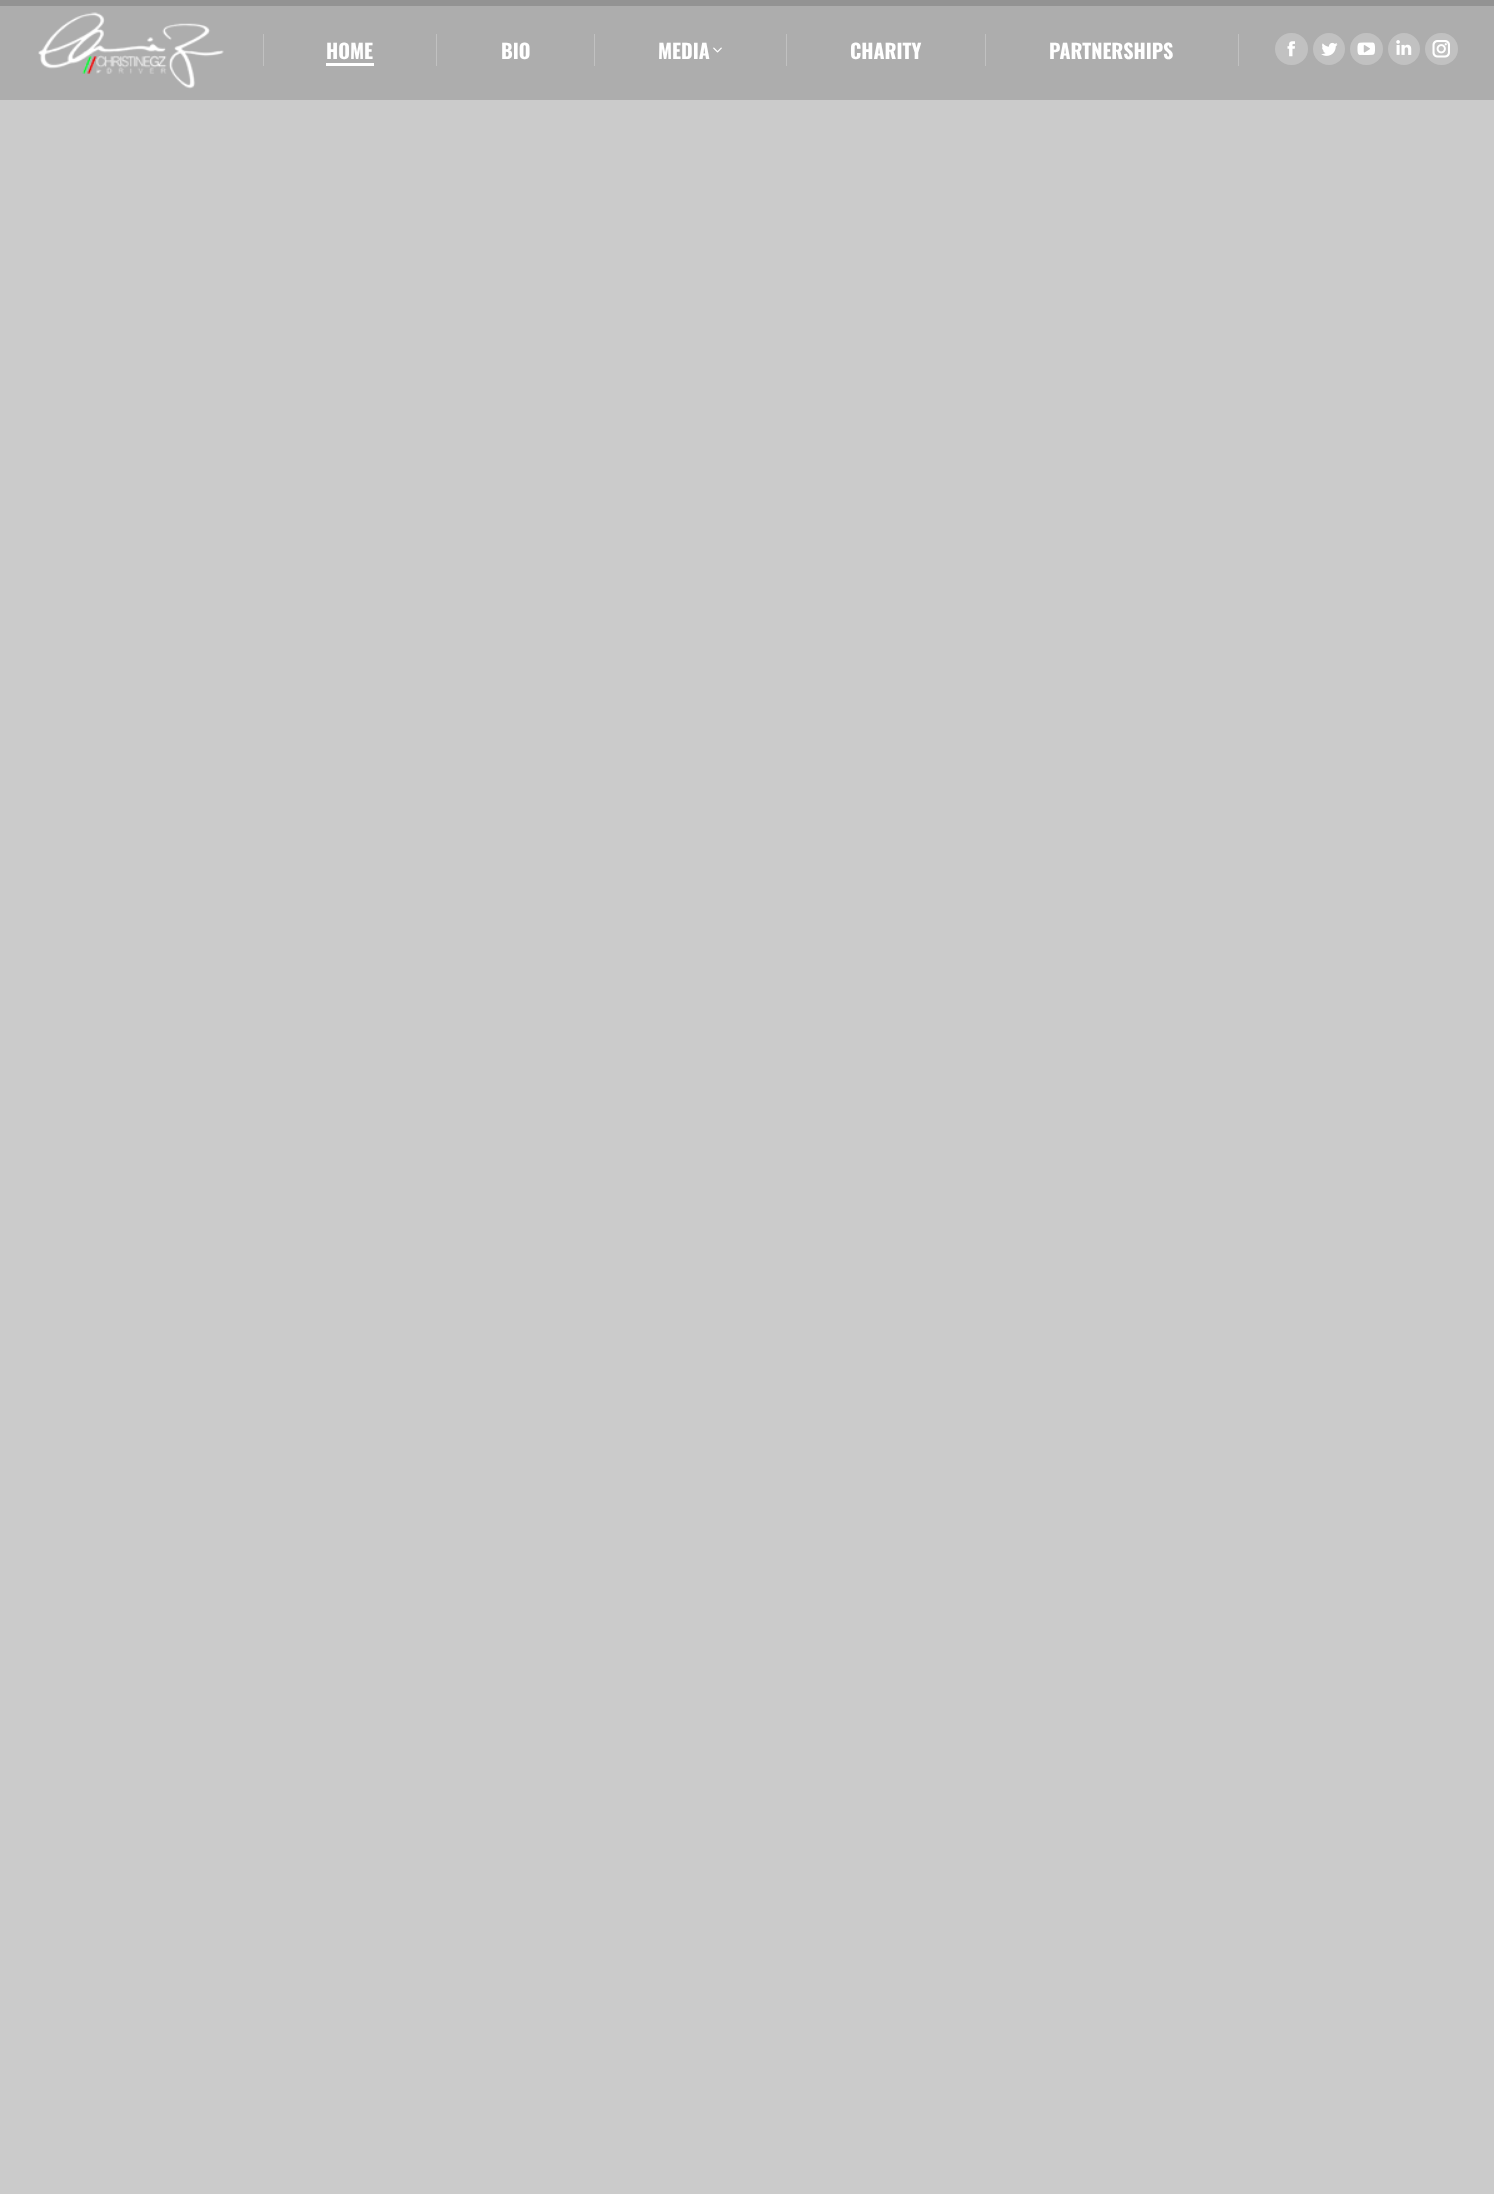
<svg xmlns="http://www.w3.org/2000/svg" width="1494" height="2194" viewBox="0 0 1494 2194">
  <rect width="100%" height="100%" fill="rgb(203,203,203)"/>
  <rect x="0" y="0" width="1494" height="6" fill="rgb(147,147,147)"/>
  <rect x="0" y="6" width="1494" height="94" fill="rgb(173,173,173)"/>
  <image x="38" y="12" width="186" height="77" href="pic1.png"/>
  <rect x="263" y="34" width="1" height="32" fill="rgb(193,193,193)"/>
  <text x="326" y="59" font-family="Oswald" font-size="20" font-weight="bold" fill="rgb(255,255,255)">HOME</text>
  <rect x="326" y="63" width="48" height="3" fill="rgb(255,255,255)"/>
  <rect x="436" y="34" width="1" height="32" fill="rgb(193,193,193)"/>
  <text x="501" y="59" font-family="Oswald" font-size="20" font-weight="bold" fill="rgb(255,255,255)">BIO</text>
  <rect x="594" y="34" width="1" height="32" fill="rgb(193,193,193)"/>
  <text x="658" y="59" font-family="Oswald" font-size="20" font-weight="bold" fill="rgb(255,255,255)">MEDIA</text>
  <image x="713" y="47" width="9" height="6" href="pic2.png"/>
  <rect x="786" y="34" width="1" height="32" fill="rgb(193,193,193)"/>
  <text x="850" y="59" font-family="Oswald" font-size="20" font-weight="bold" fill="rgb(255,255,255)">CHARITY</text>
  <rect x="985" y="34" width="1" height="32" fill="rgb(193,193,193)"/>
  <text x="1049" y="59" font-family="Oswald" font-size="20" font-weight="bold" fill="rgb(255,255,255)">PARTNERSHIPS</text>
  <rect x="1238" y="34" width="1" height="32" fill="rgb(193,193,193)"/>
  <rect x="1275" y="33" width="33" height="32" rx="16" fill="rgb(193,193,193)"/>
  <image x="1287" y="41" width="8" height="16" href="pic3.png"/>
  <circle cx="1329" cy="49" r="16" fill="rgb(193,193,193)"/>
  <image x="1321" y="42" width="17" height="14" href="pic4.png"/>
  <rect x="1350" y="33" width="33" height="32" rx="16" fill="rgb(193,193,193)"/>
  <image x="1357" y="42" width="18" height="13" href="pic5.png"/>
  <circle cx="1404" cy="49" r="16" fill="rgb(193,193,193)"/>
  <image x="1396" y="40" width="16" height="15" href="pic6.png"/>
  <rect x="1425" y="33" width="33" height="32" rx="16" fill="rgb(193,193,193)"/>
  <image x="1432" y="40" width="18" height="18" href="pic7.png"/>
</svg>
